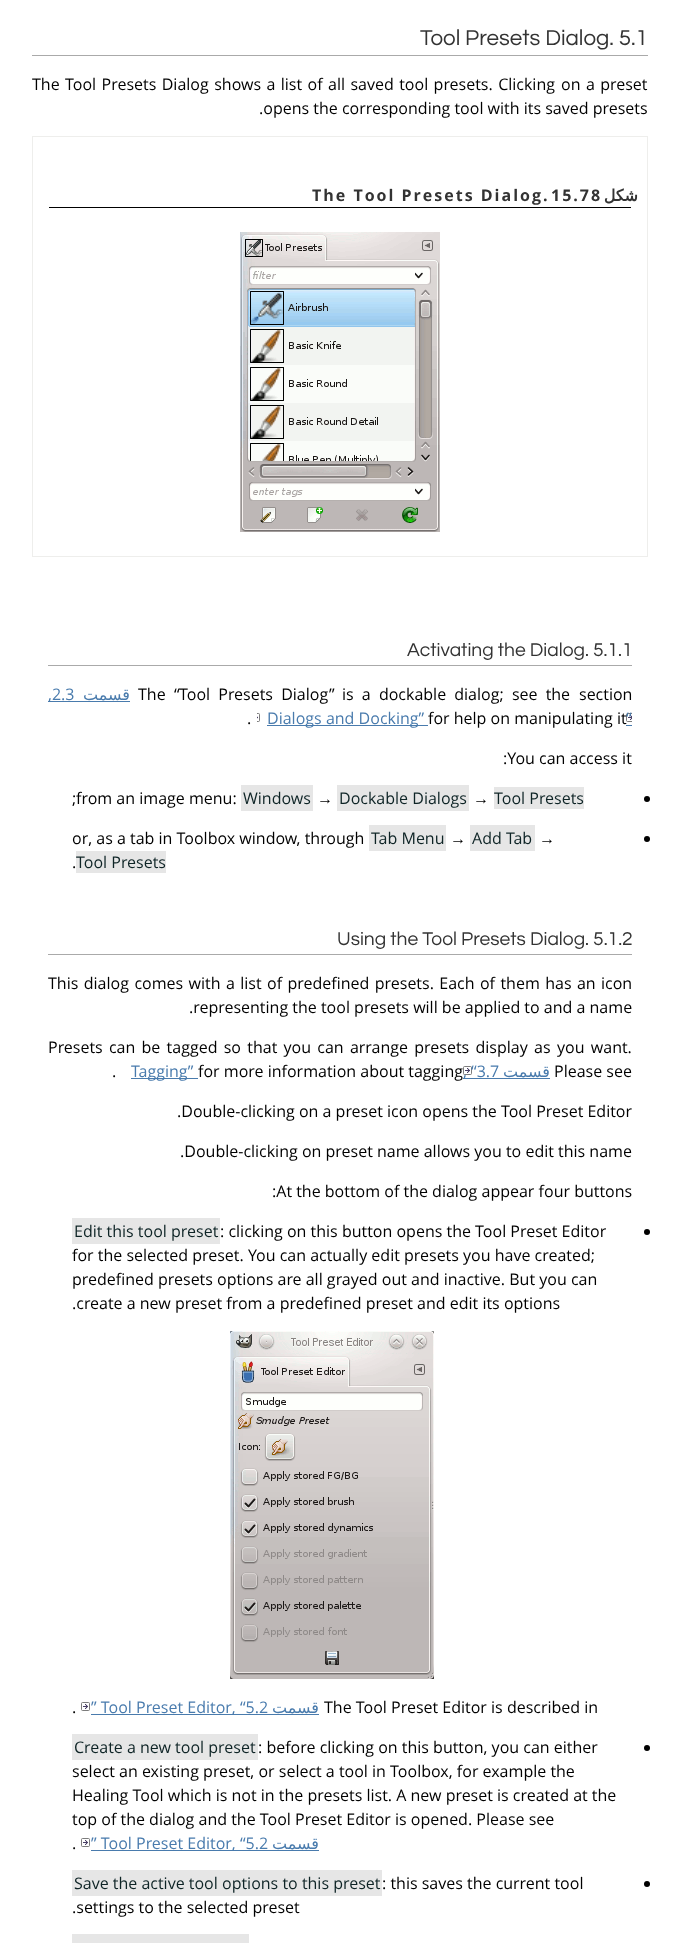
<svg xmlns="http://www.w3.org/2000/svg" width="680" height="1943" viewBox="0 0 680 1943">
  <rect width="100%" height="100%" fill="rgb(255,255,255)"/>
  <rect x="32" y="55" width="616" height="1" fill="rgb(170,170,170)"/>
  <text x="420" y="45" font-family="Questrial" font-size="22.4" fill="rgb(51,51,51)">Tool Presets Dialog. 5.1</text>
  <g font-family="Open Sans" font-size="16" fill="rgb(0,0,0)">
    <text x="32" y="90" word-spacing="1.25">The Tool Presets Dialog shows a list of all saved tool presets. Clicking</text>
    <text x="561" y="90" word-spacing="1.25">on a preset</text>
    <text x="259" y="114">.opens the corresponding tool with its saved presets</text>
  </g>
  <rect x="32.5" y="136.5" width="615" height="420" fill="none" stroke="rgb(238,238,236)"/>
  <rect x="49" y="207" width="582" height="1" fill="rgb(0,0,0)"/>
  <g font-family="Open Sans" font-size="16" font-weight="bold" letter-spacing="2" fill="rgb(51,51,51)">
    <text x="312" y="201">The Tool Presets Dialog.</text>
    <text x="551" y="201">15.78</text>
  </g>
  <text x="638" y="201" font-family="DejaVu Sans" font-size="16" font-weight="bold" letter-spacing="2" direction="rtl" fill="rgb(51,51,51)">شكل</text>
  <image x="240" y="232" width="200" height="300" href="pic1.png"/>
  <rect x="48" y="665" width="584" height="1" fill="rgb(170,170,170)"/>
  <text x="407" y="656" font-family="Questrial" font-size="19.25" fill="rgb(51,51,51)">Activating the Dialog. 5.1.1</text>
  <rect x="48" y="701" width="82" height="1" fill="rgb(73,123,173)"/>
  <text x="48" y="700" font-family="Open Sans" font-size="16" fill="rgb(73,123,173)">,2.3</text>
  <text x="130" y="700" font-family="DejaVu Sans" font-size="16" direction="rtl" fill="rgb(73,123,173)">قسمت</text>
  <g font-family="Open Sans" font-size="16" fill="rgb(0,0,0)">
    <text x="138" y="700">The</text>
    <text x="174" y="700">“</text>
    <text x="179" y="700" word-spacing="4">Tool Presets Dialog</text>
    <text x="329" y="700">”</text>
    <text x="342" y="700" word-spacing="4">is a dockable dialog; see the</text>
    <text x="579" y="700">section</text>
  </g>
  <rect x="267" y="725" width="161" height="1" fill="rgb(73,123,173)"/>
  <image x="257" y="713" width="375" height="9" href="pic2.png"/>
  <g font-family="Open Sans" font-size="16" fill="rgb(73,123,173)">
    <text x="267" y="724">Dialogs and Docking”</text>
    <text x="626" y="724">“</text>
  </g>
  <rect x="626" y="725" width="6" height="1" fill="rgb(73,123,173)"/>
  <g font-family="Open Sans" font-size="16" fill="rgb(0,0,0)">
    <text x="428" y="724">for help on manipulating it</text>
    <text x="247" y="724">.</text>
    <text x="503" y="764">:You can access it</text>
    <text x="72" y="804">;</text>
    <text x="76" y="804">from an image menu:</text>
  </g>
  <rect x="241" y="785" width="72" height="26" fill="rgb(230,230,230)"/>
  <text x="243" y="804" font-family="Open Sans" font-size="16" fill="rgb(14,36,38)">Windows</text>
  <text x="317" y="804" font-family="Liberation Sans" font-size="16" fill="rgb(0,0,0)">→</text>
  <rect x="337" y="785" width="132" height="26" fill="rgb(230,230,230)"/>
  <text x="339" y="804" font-family="Open Sans" font-size="16" fill="rgb(14,36,38)">Dockable Dialogs</text>
  <text x="473" y="804" font-family="Liberation Sans" font-size="16" fill="rgb(0,0,0)">→</text>
  <rect x="494" y="787" width="90" height="22" fill="rgb(230,230,230)"/>
  <text x="494" y="804" font-family="Open Sans" font-size="16" fill="rgb(14,36,38)">Tool Presets</text>
  <circle cx="647" cy="799" r="3" fill="rgb(0,0,0)"/>
  <text x="72" y="844" font-family="Open Sans" font-size="16" fill="rgb(0,0,0)">or, as a tab in Toolbox window, through</text>
  <rect x="369" y="825" width="77" height="26" fill="rgb(230,230,230)"/>
  <text x="371" y="844" font-family="Open Sans" font-size="16" fill="rgb(14,36,38)">Tab Menu</text>
  <text x="450" y="844" font-family="Liberation Sans" font-size="16" fill="rgb(0,0,0)">→</text>
  <rect x="470" y="825" width="65" height="26" fill="rgb(230,230,230)"/>
  <text x="472" y="844" font-family="Open Sans" font-size="16" fill="rgb(14,36,38)">Add Tab</text>
  <text x="539" y="844" font-family="Liberation Sans" font-size="16" fill="rgb(0,0,0)">→</text>
  <text x="72" y="868" font-family="Open Sans" font-size="16" fill="rgb(0,0,0)">.</text>
  <rect x="76" y="851" width="90" height="22" fill="rgb(230,230,230)"/>
  <text x="76" y="868" font-family="Open Sans" font-size="16" fill="rgb(14,36,38)">Tool Presets</text>
  <circle cx="647" cy="839" r="3" fill="rgb(0,0,0)"/>
  <rect x="48" y="954" width="584" height="1" fill="rgb(170,170,170)"/>
  <text x="337" y="945" font-family="Questrial" font-size="19.25" fill="rgb(51,51,51)">Using the Tool Presets Dialog. 5.1.2</text>
  <g font-family="Open Sans" font-size="16" fill="rgb(0,0,0)">
    <text x="48" y="989" word-spacing="1.25">This dialog comes with a list of predefined presets. Each of them has an</text>
    <text x="601" y="989">icon</text>
    <text x="189" y="1013">.representing the tool presets will be applied to and a name</text>
    <text x="48" y="1053" word-spacing="2.1">Presets can be tagged so that you can arrange presets display as</text>
    <text x="557" y="1053" word-spacing="2.1">you want.</text>
  </g>
  <rect x="131" y="1078" width="67" height="1" fill="rgb(73,123,173)"/>
  <text x="131" y="1077" font-family="Open Sans" font-size="16" fill="rgb(73,123,173)">Tagging”</text>
  <text x="198" y="1077" font-family="Open Sans" font-size="16" fill="rgb(0,0,0)">for more information about tagging</text>
  <rect x="463" y="1078" width="13" height="1" fill="rgb(73,123,173)"/>
  <image x="463" y="1066" width="9" height="9" href="pic3.png"/>
  <text x="463" y="1077" font-family="Open Sans" font-size="16" fill="rgb(73,123,173)">, “3.7</text>
  <rect x="476" y="1078" width="74" height="1" fill="rgb(73,123,173)"/>
  <g font-family="Open Sans" font-size="16" fill="rgb(0,0,0)">
    <text x="554" y="1077">Please see</text>
    <text x="112" y="1077">.</text>
  </g>
  <text x="550" y="1077" font-family="DejaVu Sans" font-size="16" direction="rtl" fill="rgb(73,123,173)">قسمت</text>
  <g font-family="Open Sans" font-size="16" fill="rgb(0,0,0)">
    <text x="177" y="1117">.Double-clicking on a preset icon opens the Tool Preset Editor</text>
    <text x="180" y="1157">.Double-clicking on preset name allows you to edit this name</text>
    <text x="272" y="1197">:At the bottom of the dialog appear four buttons</text>
  </g>
  <rect x="72" y="1218" width="148" height="26" fill="rgb(230,230,230)"/>
  <text x="74" y="1237" font-family="Open Sans" font-size="16" fill="rgb(14,36,38)">Edit this tool preset</text>
  <g font-family="Open Sans" font-size="16" fill="rgb(0,0,0)">
    <text x="220" y="1237">: clicking on this button opens the Tool Preset Editor</text>
    <text>
      <tspan x="72" y="1261">for the selected preset. You can actually edit presets you have created;</tspan>
      <tspan x="72" y="1285">predefined presets options are all grayed out and inactive. But you can</tspan>
      <tspan x="72" y="1309">.create a new preset from a predefined preset and edit its options</tspan>
    </text>
  </g>
  <circle cx="647" cy="1232" r="3" fill="rgb(0,0,0)"/>
  <image x="230" y="1331" width="204" height="348" href="pic4.png"/>
  <text x="72" y="1713" font-family="Open Sans" font-size="16" fill="rgb(0,0,0)">.</text>
  <image x="81" y="1702" width="9" height="9" href="pic3.png"/>
  <rect x="91" y="1714" width="228" height="1" fill="rgb(73,123,173)"/>
  <text x="91" y="1713" font-family="Open Sans" font-size="16" fill="rgb(73,123,173)">” Tool Preset Editor, “5.2</text>
  <text x="319" y="1713" font-family="DejaVu Sans" font-size="16" direction="rtl" fill="rgb(73,123,173)">قسمت</text>
  <text x="324" y="1713" font-family="Open Sans" font-size="16" fill="rgb(0,0,0)">The Tool Preset Editor is described in</text>
  <rect x="72" y="1734" width="186" height="26" fill="rgb(230,230,230)"/>
  <text x="74" y="1753" font-family="Open Sans" font-size="16" fill="rgb(14,36,38)">Create a new tool preset</text>
  <g font-family="Open Sans" font-size="16" fill="rgb(0,0,0)">
    <text x="258" y="1753">: before clicking on this button, you can either</text>
    <text>
      <tspan x="72" y="1777">select an existing preset, or select a tool in Toolbox, for example the</tspan>
      <tspan x="72" y="1801">Healing Tool which is not in the presets list. A new preset is created at the</tspan>
      <tspan x="72" y="1825">top of the dialog and the Tool Preset Editor is opened. Please see</tspan>
      <tspan x="72" y="1849">.</tspan>
    </text>
  </g>
  <image x="81" y="1838" width="9" height="9" href="pic3.png"/>
  <rect x="91" y="1850" width="228" height="1" fill="rgb(73,123,173)"/>
  <text x="91" y="1849" font-family="Open Sans" font-size="16" fill="rgb(73,123,173)">” Tool Preset Editor, “5.2</text>
  <text x="319" y="1849" font-family="DejaVu Sans" font-size="16" direction="rtl" fill="rgb(73,123,173)">قسمت</text>
  <circle cx="647" cy="1748" r="3" fill="rgb(0,0,0)"/>
  <rect x="72" y="1870" width="310" height="26" fill="rgb(230,230,230)"/>
  <text x="74" y="1889" font-family="Open Sans" font-size="16" fill="rgb(14,36,38)">Save the active tool options to this preset</text>
  <g font-family="Open Sans" font-size="16" fill="rgb(0,0,0)">
    <text x="382" y="1889">: this saves the current tool</text>
    <text x="72" y="1913">.settings to the selected preset</text>
  </g>
  <circle cx="647" cy="1884" r="3" fill="rgb(0,0,0)"/>
  <rect x="72" y="1934" width="177" height="9" fill="rgb(230,230,230)"/>
</svg>
